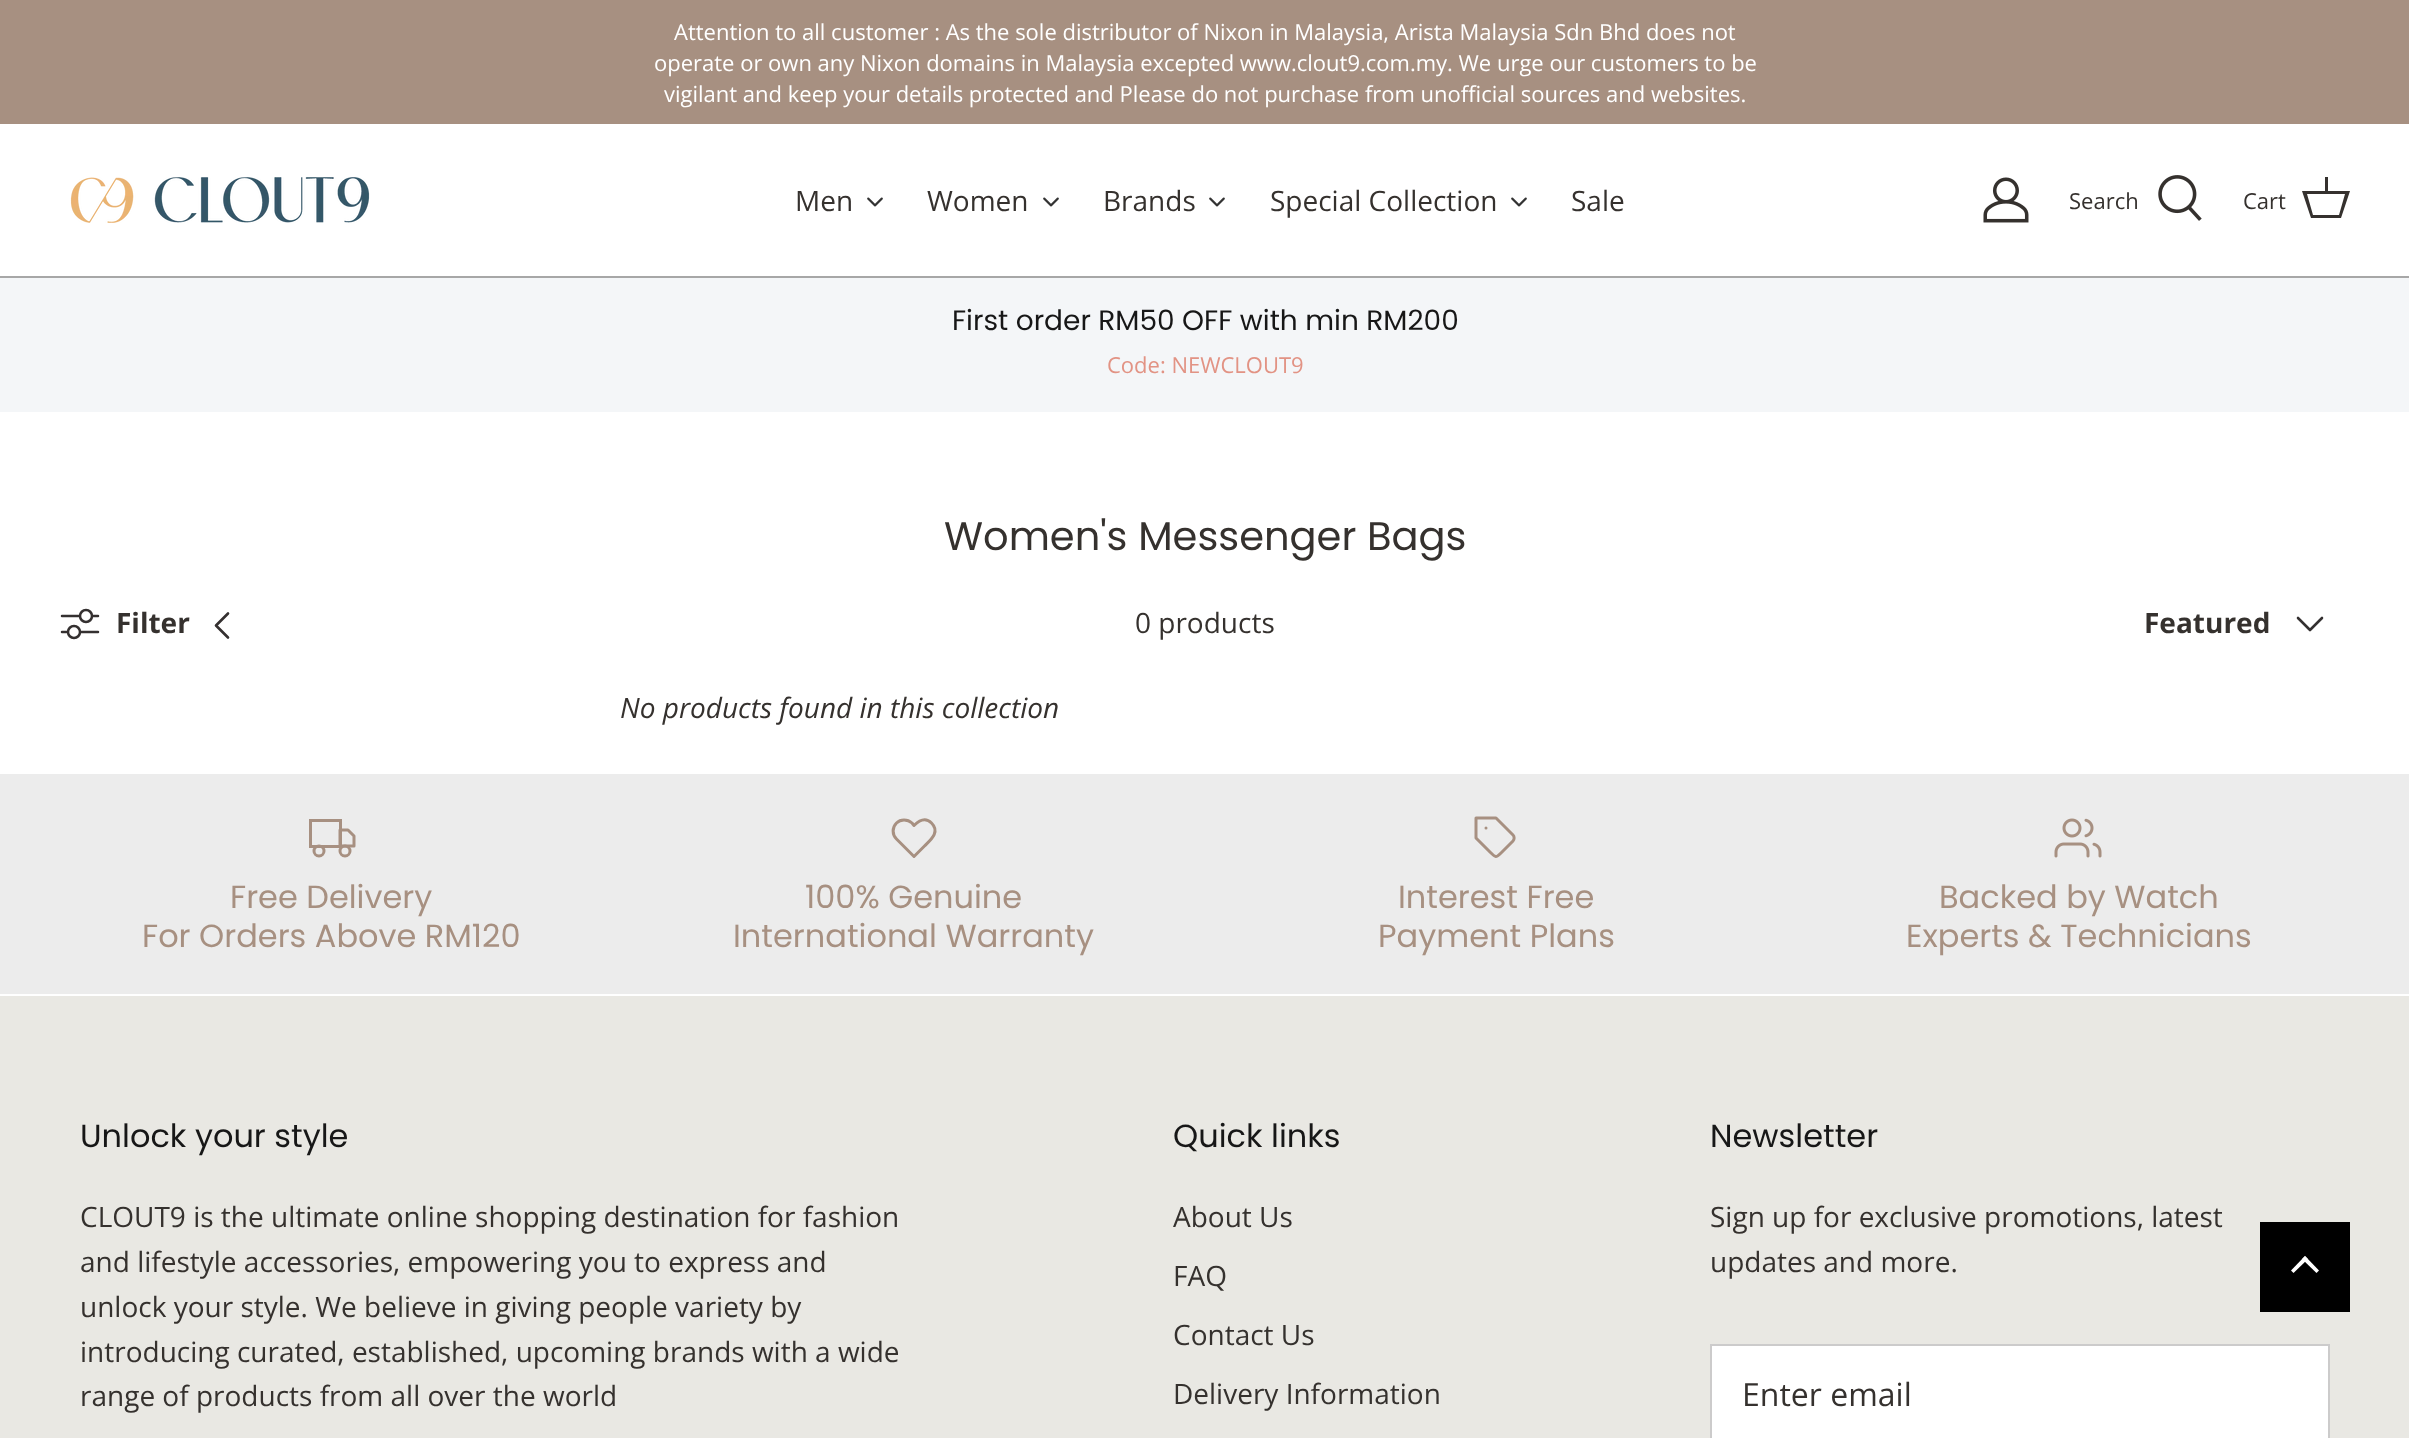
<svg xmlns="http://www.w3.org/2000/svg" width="2409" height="1438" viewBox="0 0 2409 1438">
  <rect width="100%" height="100%" fill="rgb(255,255,255)"/>
  <rect x="0" y="0" width="2409" height="124" fill="rgb(167,144,129)"/>
  <g font-family="Open Sans" font-size="22" fill="rgb(255,255,255)">
    <text x="674" y="40">Attention to all customer : As the sole distributor of Nixon in Malaysia, Arista Malaysia Sdn Bhd does not</text>
    <text x="654" y="71">operate or own any Nixon domains in Malaysia excepted www.clout9.com.my. We urge our customers to be</text>
    <text x="664" y="102">vigilant and keep your details protected and Please do not purchase from unofficial sources and websites.</text>
  </g>
  <rect x="0" y="276" width="2409" height="2" fill="rgb(167,167,167)"/>
  <image x="70" y="177" width="300" height="46" href="pic1.png"/>
  <text x="795" y="211" font-family="Open Sans" font-size="28" fill="rgb(53,49,46)">Men</text>
  <image x="867" y="197" width="16" height="10" href="pic2.png"/>
  <text x="927" y="211" font-family="Open Sans" font-size="28" fill="rgb(53,49,46)">Women</text>
  <image x="1043" y="197" width="16" height="10" href="pic2.png"/>
  <text x="1103" y="211" font-family="Open Sans" font-size="28" fill="rgb(53,49,46)">Brands</text>
  <image x="1209" y="197" width="16" height="10" href="pic2.png"/>
  <text x="1270" y="211" font-family="Open Sans" font-size="28" fill="rgb(53,49,46)">Special Collection</text>
  <image x="1511" y="197" width="16" height="10" href="pic2.png"/>
  <text x="1571" y="211" font-family="Open Sans" font-size="28" fill="rgb(53,49,46)">Sale</text>
  <image x="1983" y="177" width="46" height="46" href="pic3.png"/>
  <text x="2069" y="209" font-family="Open Sans" font-size="22" fill="rgb(53,49,46)">Search</text>
  <image x="2158" y="175" width="44" height="46" href="pic4.png"/>
  <text x="2243" y="209" font-family="Open Sans" font-size="22" fill="rgb(53,49,46)">Cart</text>
  <path d="M2325 191V177H2328V191H2350L2341 218H2311L2302 191ZM2307 194L2313 215H2339L2345 194Z" fill="rgb(53,49,46)"/>
  <rect x="0" y="278" width="2409" height="134" fill="rgb(244,246,248)"/>
  <text x="952" y="330" font-family="Poppins" font-size="28" fill="rgb(23,23,23)">First order RM50 OFF with min RM200</text>
  <text x="1107" y="373" font-family="Open Sans" font-size="22" fill="rgb(226,147,132)">Code: NEWCLOUT9</text>
  <text x="944" y="550" font-family="Poppins" font-size="40" fill="rgb(53,49,46)">Women's Messenger Bags</text>
  <path d="M62 616H98M62 632H98" fill="none" stroke="rgb(52,48,48)" stroke-width="2.5" stroke-linecap="round" stroke-linejoin="round"/>
  <circle cx="86" cy="616" r="6" fill="rgb(255,255,255)" stroke="rgb(52,48,48)" stroke-width="2.5"/>
  <circle cx="74" cy="632" r="6" fill="rgb(255,255,255)" stroke="rgb(52,48,48)" stroke-width="2.5"/>
  <text x="116" y="633" font-family="Open Sans" font-size="28" font-weight="bold" fill="rgb(53,49,46)">Filter</text>
  <path d="M228 613.5L216 625.5L228 637.5" fill="none" stroke="rgb(52,48,48)" stroke-width="2.6" stroke-linecap="round" stroke-linejoin="round"/>
  <text x="1135" y="633" font-family="Open Sans" font-size="28" fill="rgb(53,49,46)">0 products</text>
  <text x="2144" y="633" font-family="Open Sans" font-size="28" font-weight="bold" fill="rgb(53,49,46)">Featured</text>
  <path d="M2298 618L2310 630L2322 618" fill="none" stroke="rgb(52,48,48)" stroke-width="2.6" stroke-linecap="round" stroke-linejoin="round"/>
  <text x="620" y="718" font-family="Open Sans" font-size="28" font-style="italic" fill="rgb(53,49,46)">No products found in this collection</text>
  <rect x="0" y="996" width="2409" height="442" fill="rgb(233,232,227)"/>
  <rect x="0" y="774" width="2409" height="220" fill="rgb(236,236,236)"/>
  <rect x="310.5" y="820.5" width="30" height="26" fill="none" stroke="rgb(167,144,129)" stroke-width="3"/>
  <path d="M340 830H348L354 836V846H340Z" fill="none" stroke="rgb(167,144,129)" stroke-width="3" stroke-linecap="round" stroke-linejoin="round"/>
  <circle cx="319" cy="851" r="5" fill="none" stroke="rgb(167,144,129)" stroke-width="3"/>
  <circle cx="345" cy="851" r="5" fill="none" stroke="rgb(167,144,129)" stroke-width="3"/>
  <g font-family="Poppins" font-size="32" fill="rgb(167,144,129)">
    <text x="230" y="908">Free Delivery</text>
    <text x="142" y="947">For Orders Above RM120</text>
  </g>
  <path d="M931.5 823C925.5 817 919 820.5 914 825.5L912 823C907.5 819 900.5 819 896.5 823C892 827.5 892 834.5 896.5 839L914 856.5L924.5 846C930.5 840 940.5 832 931.5 823Z" fill="none" stroke="rgb(167,144,129)" stroke-width="3" stroke-linecap="round" stroke-linejoin="round"/>
  <g font-family="Poppins" font-size="32" fill="rgb(167,144,129)">
    <text x="805" y="908">100% Genuine</text>
    <text x="733" y="947">International Warranty</text>
  </g>
  <path d="M1513 841L1501 853C1496 858 1495.5 857.5 1490.5 852.5L1476 838V818H1496L1513 835C1514.5 836.5 1514.5 839.5 1513 841ZM1486 828H1486" fill="none" stroke="rgb(167,144,129)" stroke-width="3" stroke-linecap="round" stroke-linejoin="round"/>
  <g font-family="Poppins" font-size="32" fill="rgb(167,144,129)">
    <text x="1398" y="908">Interest Free</text>
    <text x="1378" y="947">Payment Plans</text>
  </g>
  <image x="2054" y="818" width="48" height="40" href="pic5.png"/>
  <g font-family="Poppins" font-size="32" fill="rgb(167,144,129)">
    <text x="1939" y="908">Backed by Watch</text>
    <text x="1906" y="947">Experts &amp; Technicians</text>
  </g>
  <text x="80" y="1147" font-family="Poppins" font-size="32" fill="rgb(23,23,23)">Unlock your style</text>
  <g font-family="Open Sans" font-size="28" fill="rgb(53,49,46)">
    <text>
      <tspan x="80" y="1227">CLOUT9 is the ultimate online shopping destination for fashion</tspan>
      <tspan x="80" y="1272">and lifestyle accessories, empowering you to express and</tspan>
      <tspan x="80" y="1317">unlock your style. We believe in giving people variety by</tspan>
      <tspan x="80" y="1362">introducing curated, established, upcoming brands with a wide</tspan>
      <tspan x="80" y="1406">range of products from all over the world</tspan>
    </text>
  </g>
  <text x="1173" y="1147" font-family="Poppins" font-size="32" fill="rgb(23,23,23)">Quick links</text>
  <g font-family="Open Sans" font-size="28" fill="rgb(53,49,46)">
    <text x="1173" y="1227">About Us</text>
    <text x="1173" y="1286">FAQ</text>
    <text x="1173" y="1345">Contact Us</text>
    <text x="1173" y="1404">Delivery Information</text>
  </g>
  <text x="1710" y="1147" font-family="Poppins" font-size="32" fill="rgb(23,23,23)">Newsletter</text>
  <g font-family="Open Sans" font-size="28" fill="rgb(53,49,46)">
    <text>
      <tspan x="1710" y="1227">Sign up for exclusive promotions, latest</tspan>
      <tspan x="1710" y="1272">updates and more.</tspan>
    </text>
  </g>
  <rect x="1711" y="1345" width="618" height="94" fill="rgb(255,255,255)" stroke="rgb(204,203,203)" stroke-width="2"/>
  <text x="1742" y="1406" font-family="Open Sans" font-size="32" fill="rgb(53,49,46)">Enter email</text>
  <rect x="2260" y="1222" width="90" height="90" fill="rgb(0,0,0)"/>
  <path d="M2293.5 1273L2291 1270.5L2305 1256L2308 1259Z" fill="rgb(255,255,255)"/>
  <path d="M2316.5 1273L2302 1259L2305 1256L2319 1270.5Z" fill="rgb(255,255,255)"/>
</svg>
